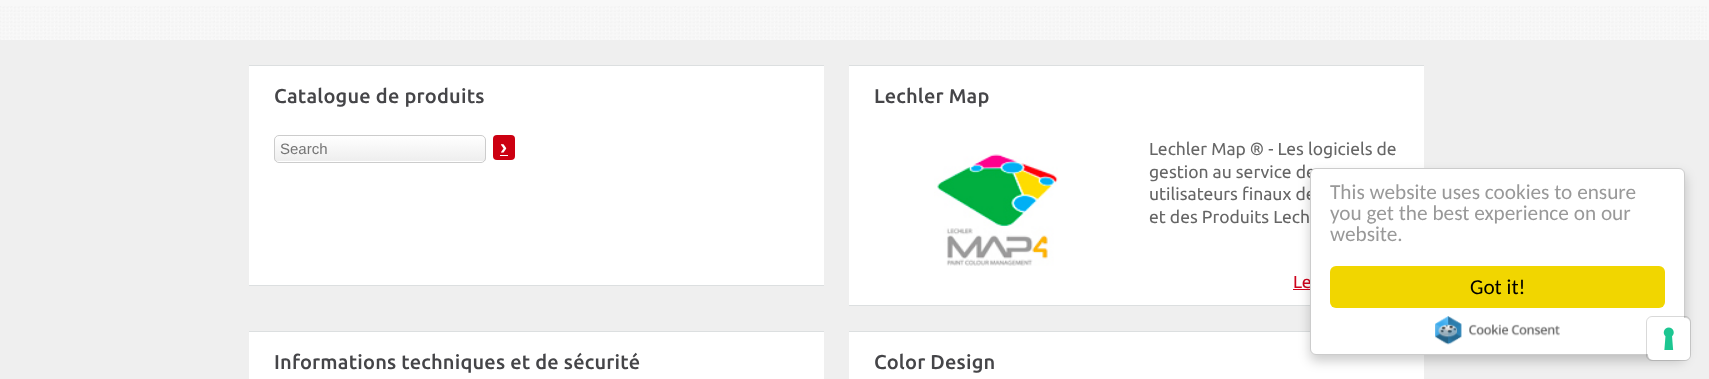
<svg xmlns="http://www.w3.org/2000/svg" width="1709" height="379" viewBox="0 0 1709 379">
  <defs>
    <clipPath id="clip1"><rect x="274" y="135" width="212" height="28" rx="5"/></clipPath>
    <linearGradient id="g1" gradientUnits="userSpaceOnUse" x1="380" y1="136" x2="380" y2="161"><stop offset="0" stop-color="rgb(255,255,255)"/><stop offset="1" stop-color="rgb(238,238,238)"/></linearGradient>
  </defs>
  <rect width="100%" height="100%" fill="rgb(248,248,248)"/>
  <image x="0" y="6" width="1707" height="34" href="pic1.png"/>
  <rect x="0" y="40" width="1709" height="339" fill="rgb(239,239,239)"/>
  <rect x="249" y="66" width="575" height="219" fill="rgb(255,255,255)"/>
  <rect x="249" y="65" width="575" height="1" fill="rgb(220,223,224)"/>
  <rect x="249" y="285" width="575" height="1" fill="rgb(220,223,224)"/>
  <text x="274" y="103" font-family="Ubuntu" font-size="20" font-weight="500" letter-spacing="0.2" fill="rgb(69,69,72)">Catalogue de produits</text>
  <g clip-path="url(#clip1)">
    <rect x="274" y="136" width="212" height="25" fill="url(#g1)"/>
  </g>
  <rect x="274.5" y="135.5" width="211" height="27" rx="4.5" fill="none" stroke="rgb(204,204,204)"/>
  <text x="280" y="154" font-family="Liberation Sans" font-size="15" fill="rgb(117,117,117)">Search</text>
  <rect x="493" y="135" width="22" height="25" rx="4" fill="rgb(204,0,17)"/>
  <text x="500" y="154" font-family="Liberation Sans" font-size="21.25" font-weight="bold" fill="rgb(255,255,255)">›</text>
  <rect x="500" y="155" width="8" height="1" fill="rgb(255,255,255)"/>
  <rect x="849" y="66" width="575" height="239" fill="rgb(255,255,255)"/>
  <rect x="849" y="65" width="575" height="1" fill="rgb(220,223,224)"/>
  <rect x="849" y="305" width="461" height="1" fill="rgb(220,223,224)"/>
  <text x="874" y="103" font-family="Ubuntu" font-size="20" font-weight="500" letter-spacing="0.2" fill="rgb(69,69,72)">Lechler Map</text>
  <image x="934" y="154" width="124" height="112" href="pic2.png"/>
  <g font-family="Ubuntu" font-size="17.5" fill="rgb(102,102,102)">
    <text>
      <tspan x="1149" y="155">Lechler Map ® - Les logiciels de</tspan>
      <tspan x="1149" y="178">gestion au service de</tspan>
      <tspan x="1149" y="200">utilisateurs finaux de</tspan>
      <tspan x="1149" y="223">et des Produits Lech</tspan>
    </text>
  </g>
  <text x="1293" y="288" font-family="Ubuntu" font-size="17.5" fill="rgb(206,4,29)">Le</text>
  <rect x="1293" y="289" width="17" height="1" fill="rgb(206,4,29)"/>
  <rect x="249" y="332" width="575" height="47" fill="rgb(255,255,255)"/>
  <rect x="249" y="331" width="575" height="1" fill="rgb(220,223,224)"/>
  <text x="274" y="369" font-family="Ubuntu" font-size="20" font-weight="500" letter-spacing="0.2" fill="rgb(69,69,72)">Informations techniques et de sécurité</text>
  <rect x="849" y="332" width="575" height="47" fill="rgb(255,255,255)"/>
  <rect x="849" y="331" width="461" height="1" fill="rgb(220,223,224)"/>
  <text x="874" y="369" font-family="Ubuntu" font-size="20" font-weight="500" letter-spacing="0.2" fill="rgb(69,69,72)">Color Design</text>
  <rect x="1310" y="174" width="375" height="187" rx="6" fill="rgba(0,0,0,0.2)" filter="blur(6px)"/>
  <rect x="1310.5" y="168.5" width="374" height="186" rx="5.5" fill="rgb(255,255,255)" stroke="rgb(204,204,204)"/>
  <g font-family="Carlito" font-size="21.25" fill="rgb(153,153,153)">
    <text>
      <tspan x="1330" y="199">This website uses cookies to ensure</tspan>
      <tspan x="1330" y="220">you get the best experience on our</tspan>
      <tspan x="1330" y="241">website.</tspan>
    </text>
  </g>
  <rect x="1330" y="266" width="335" height="42" rx="6" fill="rgb(241,214,0)"/>
  <text x="1470" y="294" font-family="Carlito" font-size="21.25" fill="rgb(0,0,0)">Got it!</text>
  <image x="1435" y="316" width="125" height="29" href="pic3.png"/>
  <rect x="1646.5" y="316.5" width="44" height="44" rx="5.5" fill="none" stroke="rgba(0,0,0,0.15)"/>
  <rect x="1648" y="318" width="42" height="42" rx="5" fill="rgb(255,255,255)"/>
  <image x="1663" y="327" width="11" height="23" href="pic4.png"/>
</svg>
